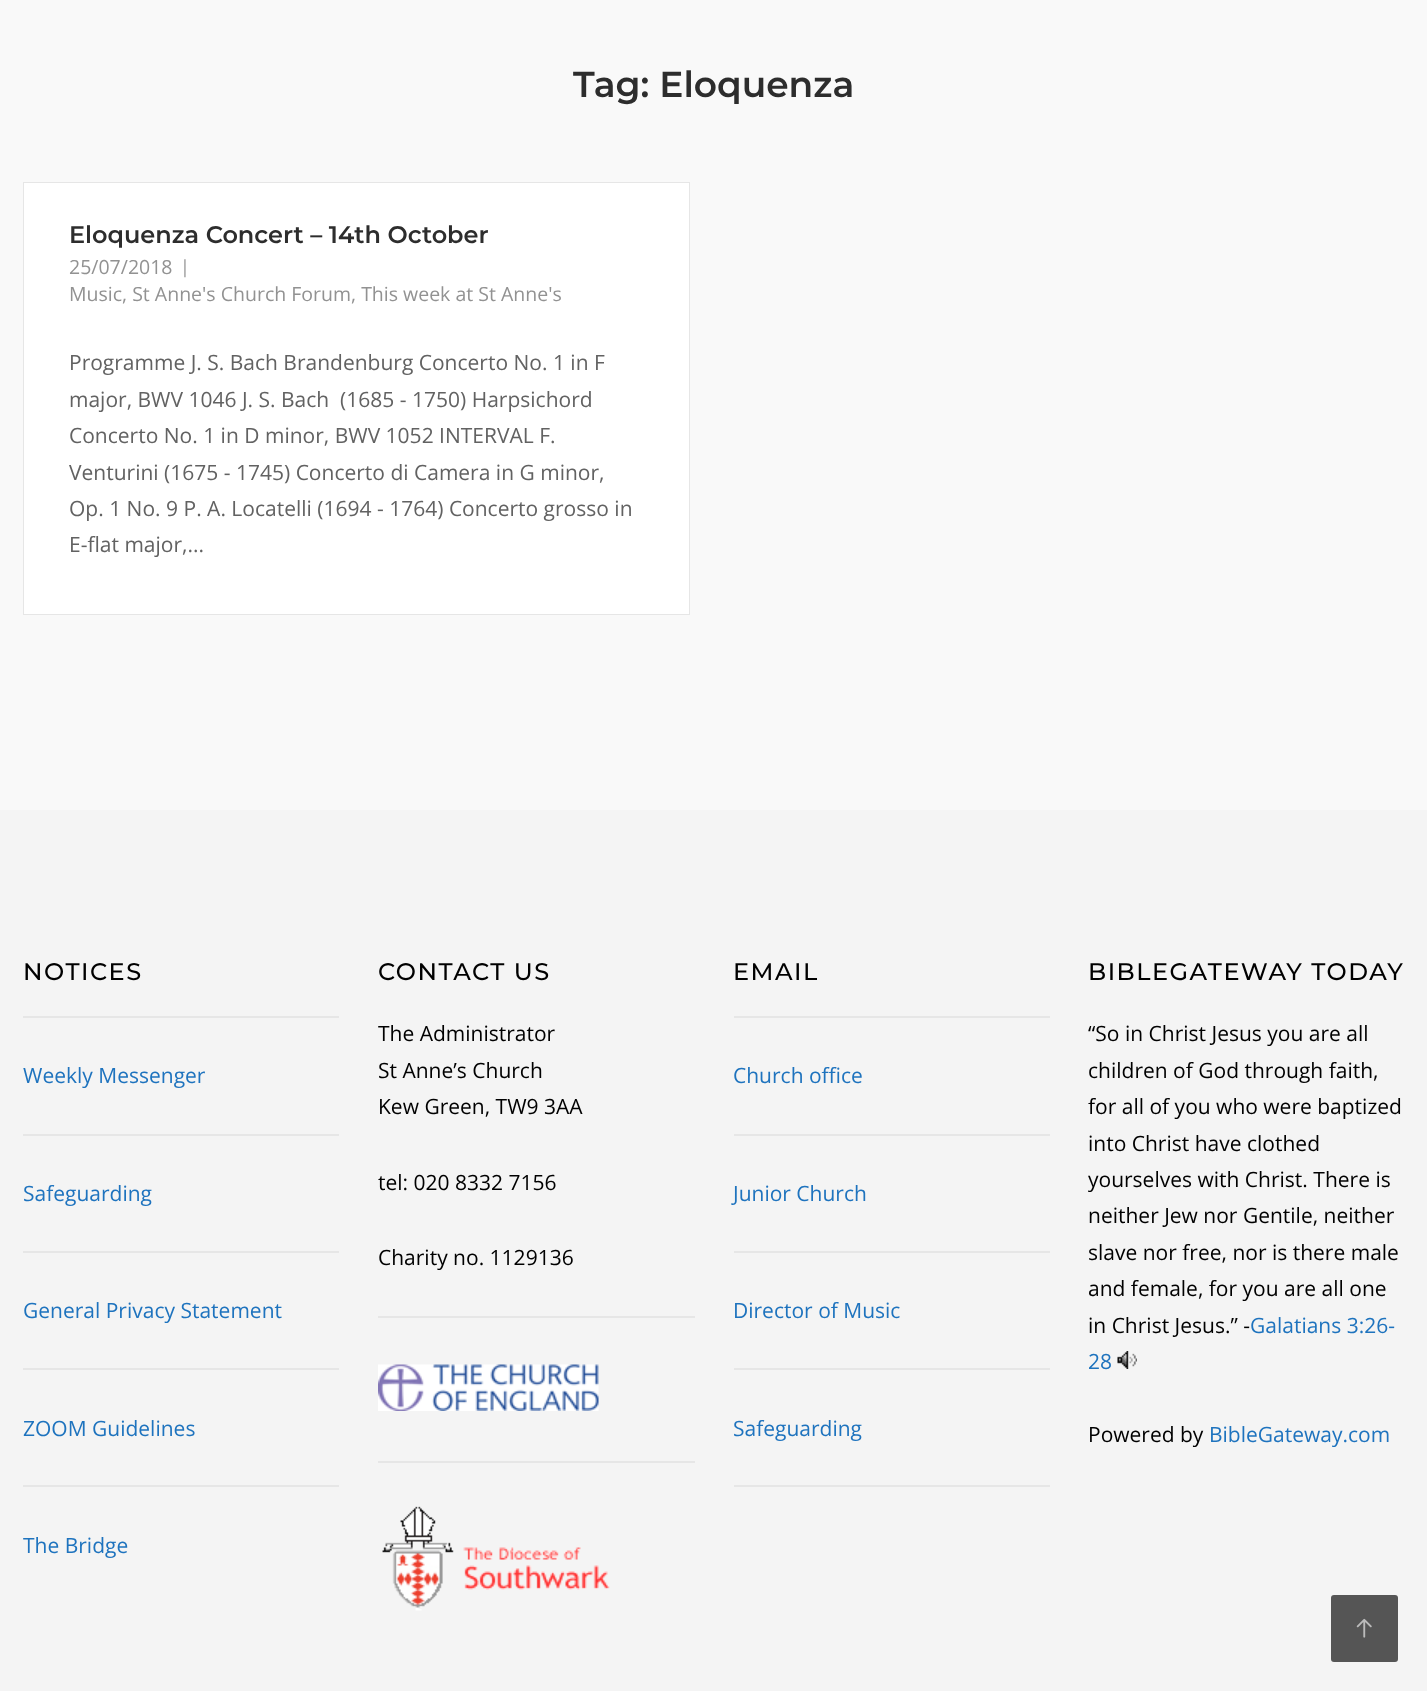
<svg xmlns="http://www.w3.org/2000/svg" width="1427" height="1691" viewBox="0 0 1427 1691">
  <rect width="100%" height="100%" fill="rgb(249,249,249)"/>
  <text x="573" y="97" font-family="Montserrat" font-size="36" font-weight="600" fill="rgb(45,45,45)">Tag: Eloquenza</text>
  <rect x="24" y="183" width="665" height="431" fill="none" stroke="rgb(230,230,230)" stroke-width="2"/>
  <rect x="24" y="183" width="665" height="431" fill="rgb(255,255,255)"/>
  <text x="69" y="243" font-family="Montserrat" font-size="24" font-weight="600" fill="rgb(45,45,45)">Eloquenza Concert – 14th October</text>
  <text x="69" y="274" font-family="Open Sans" font-size="19.5" fill="rgb(146,146,146)">25/07/2018</text>
  <text x="180" y="273" font-family="Open Sans" font-size="18" fill="rgb(146,146,146)">|</text>
  <text x="69" y="301" font-family="Open Sans" font-size="19.5" fill="rgb(146,146,146)">Music, St Anne's Church Forum, This week at St Anne's</text>
  <g font-family="Open Sans" font-size="21" fill="rgb(98,98,98)">
    <text xml:space="preserve"><tspan x="69" y="370">Programme J. S. Bach Brandenburg Concerto No. 1 in F</tspan><tspan x="69" y="407">major, BWV 1046 J. S. Bach  (1685 - 1750) Harpsichord</tspan><tspan x="69" y="443">Concerto No. 1 in D minor, BWV 1052 INTERVAL F.</tspan><tspan x="69" y="480">Venturini (1675 - 1745) Concerto di Camera in G minor,</tspan><tspan x="69" y="516">Op. 1 No. 9 P. A. Locatelli (1694 - 1764) Concerto grosso in</tspan><tspan x="69" y="552">E-flat major,...</tspan></text>
  </g>
  <rect x="0" y="810" width="1427" height="881" fill="rgb(244,244,244)"/>
  <text x="23" y="980" font-family="Montserrat" font-size="24" font-weight="500" letter-spacing="1.5" fill="rgb(0,0,0)">NOTICES</text>
  <rect x="23" y="1016" width="316" height="2" fill="rgb(230,230,230)"/>
  <text x="23" y="1083" font-family="Open Sans" font-size="21" fill="rgb(30,115,190)">Weekly Messenger</text>
  <rect x="23" y="1134" width="316" height="2" fill="rgb(230,230,230)"/>
  <text x="23" y="1201" font-family="Open Sans" font-size="21" fill="rgb(30,115,190)">Safeguarding</text>
  <rect x="23" y="1251" width="316" height="2" fill="rgb(230,230,230)"/>
  <text x="23" y="1318" font-family="Open Sans" font-size="21" fill="rgb(30,115,190)">General Privacy Statement</text>
  <rect x="23" y="1368" width="316" height="2" fill="rgb(230,230,230)"/>
  <text x="23" y="1436" font-family="Open Sans" font-size="21" fill="rgb(30,115,190)">ZOOM Guidelines</text>
  <rect x="23" y="1485" width="316" height="2" fill="rgb(230,230,230)"/>
  <text x="23" y="1553" font-family="Open Sans" font-size="21" fill="rgb(30,115,190)">The Bridge</text>
  <text x="378" y="980" font-family="Montserrat" font-size="24" font-weight="500" letter-spacing="1.5" fill="rgb(0,0,0)">CONTACT US</text>
  <g font-family="Open Sans" font-size="21" fill="rgb(0,0,0)">
    <text>
      <tspan x="378" y="1041">The Administrator</tspan>
      <tspan x="378" y="1078">St Anne’s Church</tspan>
      <tspan x="378" y="1114">Kew Green, TW9 3AA</tspan>
    </text>
    <text x="378" y="1190">tel: 020 8332 7156</text>
    <text x="378" y="1265">Charity no. 1129136</text>
  </g>
  <rect x="378" y="1316" width="317" height="2" fill="rgb(230,230,230)"/>
  <image x="378" y="1364" width="221" height="47" href="pic1.png"/>
  <rect x="378" y="1461" width="317" height="2" fill="rgb(230,230,230)"/>
  <image x="382" y="1506" width="228" height="105" href="pic2.png"/>
  <text x="733" y="980" font-family="Montserrat" font-size="24" font-weight="500" letter-spacing="1.5" fill="rgb(0,0,0)">EMAIL</text>
  <rect x="734" y="1016" width="316" height="2" fill="rgb(230,230,230)"/>
  <text x="733" y="1083" font-family="Open Sans" font-size="21" fill="rgb(30,115,190)">Church office</text>
  <rect x="734" y="1134" width="316" height="2" fill="rgb(230,230,230)"/>
  <text x="733" y="1201" font-family="Open Sans" font-size="21" fill="rgb(30,115,190)">Junior Church</text>
  <rect x="734" y="1251" width="316" height="2" fill="rgb(230,230,230)"/>
  <text x="733" y="1318" font-family="Open Sans" font-size="21" fill="rgb(30,115,190)">Director of Music</text>
  <rect x="734" y="1368" width="316" height="2" fill="rgb(230,230,230)"/>
  <text x="733" y="1436" font-family="Open Sans" font-size="21" fill="rgb(30,115,190)">Safeguarding</text>
  <rect x="734" y="1485" width="316" height="2" fill="rgb(230,230,230)"/>
  <text x="1088" y="980" font-family="Montserrat" font-size="24" font-weight="500" letter-spacing="1.5" fill="rgb(0,0,0)">BIBLEGATEWAY TODAY</text>
  <g font-family="Open Sans" font-size="21" fill="rgb(0,0,0)">
    <text>
      <tspan x="1088" y="1041">“So in Christ Jesus you are all</tspan>
      <tspan x="1088" y="1078">children of God through faith,</tspan>
      <tspan x="1088" y="1114">for all of you who were baptized</tspan>
      <tspan x="1088" y="1151">into Christ have clothed</tspan>
      <tspan x="1088" y="1187">yourselves with Christ. There is</tspan>
      <tspan x="1088" y="1223">neither Jew nor Gentile, neither</tspan>
      <tspan x="1088" y="1260">slave nor free, nor is there male</tspan>
      <tspan x="1088" y="1296">and female, for you are all one</tspan>
      <tspan x="1088" y="1333">in Christ Jesus.” -</tspan>
    </text>
  </g>
  <g font-family="Open Sans" font-size="21" fill="rgb(30,115,190)">
    <text x="1250" y="1333">Galatians 3:26-</text>
    <text x="1088" y="1369">28</text>
  </g>
  <image x="1117" y="1351" width="20" height="18" href="pic3.png"/>
  <text x="1088" y="1442" font-family="Open Sans" font-size="21" fill="rgb(0,0,0)">Powered by</text>
  <text x="1209" y="1442" font-family="Open Sans" font-size="21" fill="rgb(30,115,190)">BibleGateway.com</text>
  <rect x="1331" y="1595" width="67" height="67" rx="3" fill="rgb(85,85,85)"/>
  <image x="1356" y="1618" width="16" height="20" href="pic4.png"/>
</svg>
